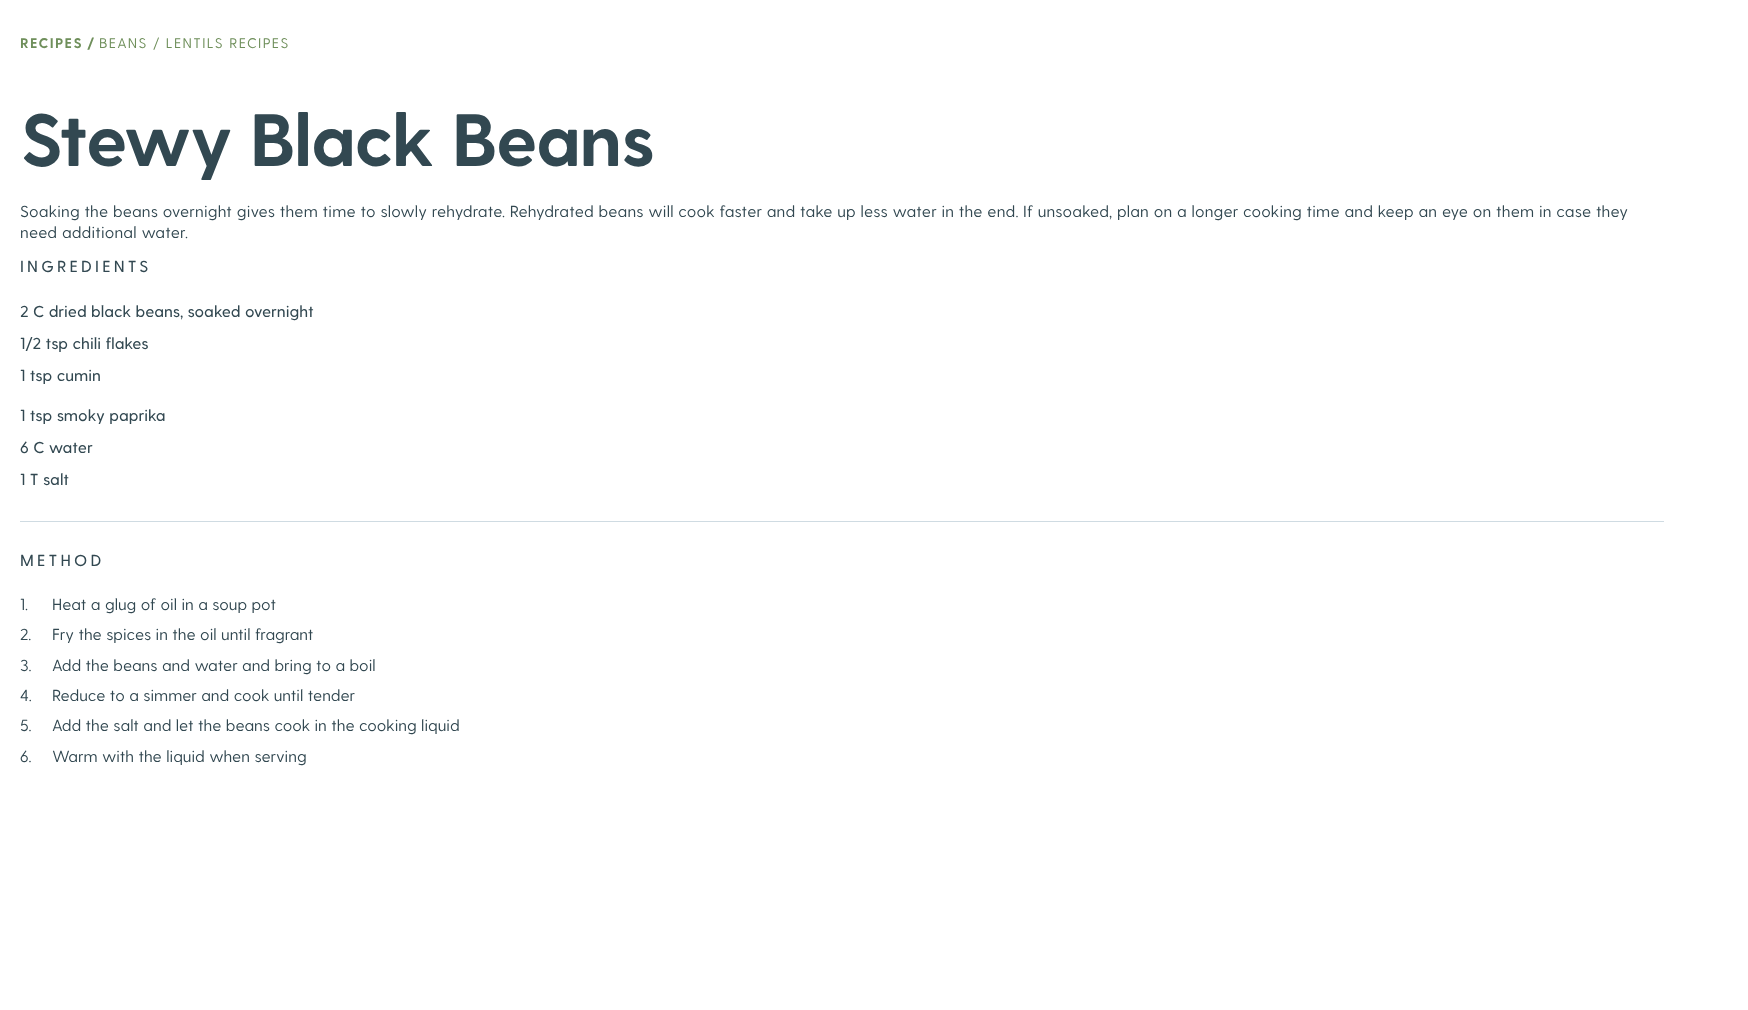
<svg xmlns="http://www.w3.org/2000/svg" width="1748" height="1010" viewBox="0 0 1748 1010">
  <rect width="100%" height="100%" fill="rgb(255,255,255)"/>
  <g font-family="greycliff" font-size="14" font-weight="bold" letter-spacing="1.4" fill="rgb(111,143,91)">
    <text x="20" y="48">RECIPES</text>
    <text x="87" y="48">/</text>
  </g>
  <text x="99" y="48" font-family="greycliff" font-size="14" letter-spacing="1.4" fill="rgb(111,143,91)">BEANS / LENTILS RECIPES</text>
  <text x="20" y="166" font-family="greycliff" font-size="74" font-weight="bold" letter-spacing="-1.8" fill="rgb(50,72,81)">Stewy Black Beans</text>
  <g font-family="greycliff" font-size="16" letter-spacing="0.2" fill="rgb(50,72,81)">
    <text>
      <tspan x="20" y="217">Soaking the beans overnight gives them time to slowly rehydrate. Rehydrated beans will cook faster and take up less water in the end. If unsoaked, plan on a longer cooking time and keep an eye on them in case they</tspan>
      <tspan x="20" y="238">need additional water.</tspan>
    </text>
  </g>
  <text x="20" y="272" font-family="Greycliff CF" font-size="16" font-weight="500" letter-spacing="3.25" fill="rgb(50,72,81)">INGREDIENTS</text>
  <g font-family="Greycliff CF" font-size="16" font-weight="500" fill="rgb(50,72,81)">
    <text x="20" y="317">2 C dried black beans, soaked overnight</text>
    <text x="20" y="349">1/2 tsp chili flakes</text>
    <text x="20" y="381">1 tsp cumin</text>
    <text x="20" y="421">1 tsp smoky paprika</text>
    <text x="20" y="453">6 C water</text>
    <text x="20" y="485">1 T salt</text>
  </g>
  <rect x="20" y="521" width="1644" height="1" fill="rgb(207,219,226)"/>
  <text x="20" y="566" font-family="Greycliff CF" font-size="16" font-weight="500" letter-spacing="3.25" fill="rgb(50,72,81)">METHOD</text>
  <g font-family="greycliff" font-size="16" fill="rgb(50,72,81)">
    <text x="20" y="610">1.</text>
    <text x="52" y="610">Heat a glug of oil in a soup pot</text>
    <text x="20" y="640">2.</text>
    <text x="52" y="640">Fry the spices in the oil until fragrant</text>
    <text x="20" y="671">3.</text>
    <text x="52" y="671">Add the beans and water and bring to a boil</text>
    <text x="20" y="701">4.</text>
    <text x="52" y="701">Reduce to a simmer and cook until tender</text>
    <text x="20" y="731">5.</text>
    <text x="52" y="731">Add the salt and let the beans cook in the cooking liquid</text>
    <text x="20" y="762">6.</text>
    <text x="52" y="762">Warm with the liquid when serving</text>
  </g>
</svg>
